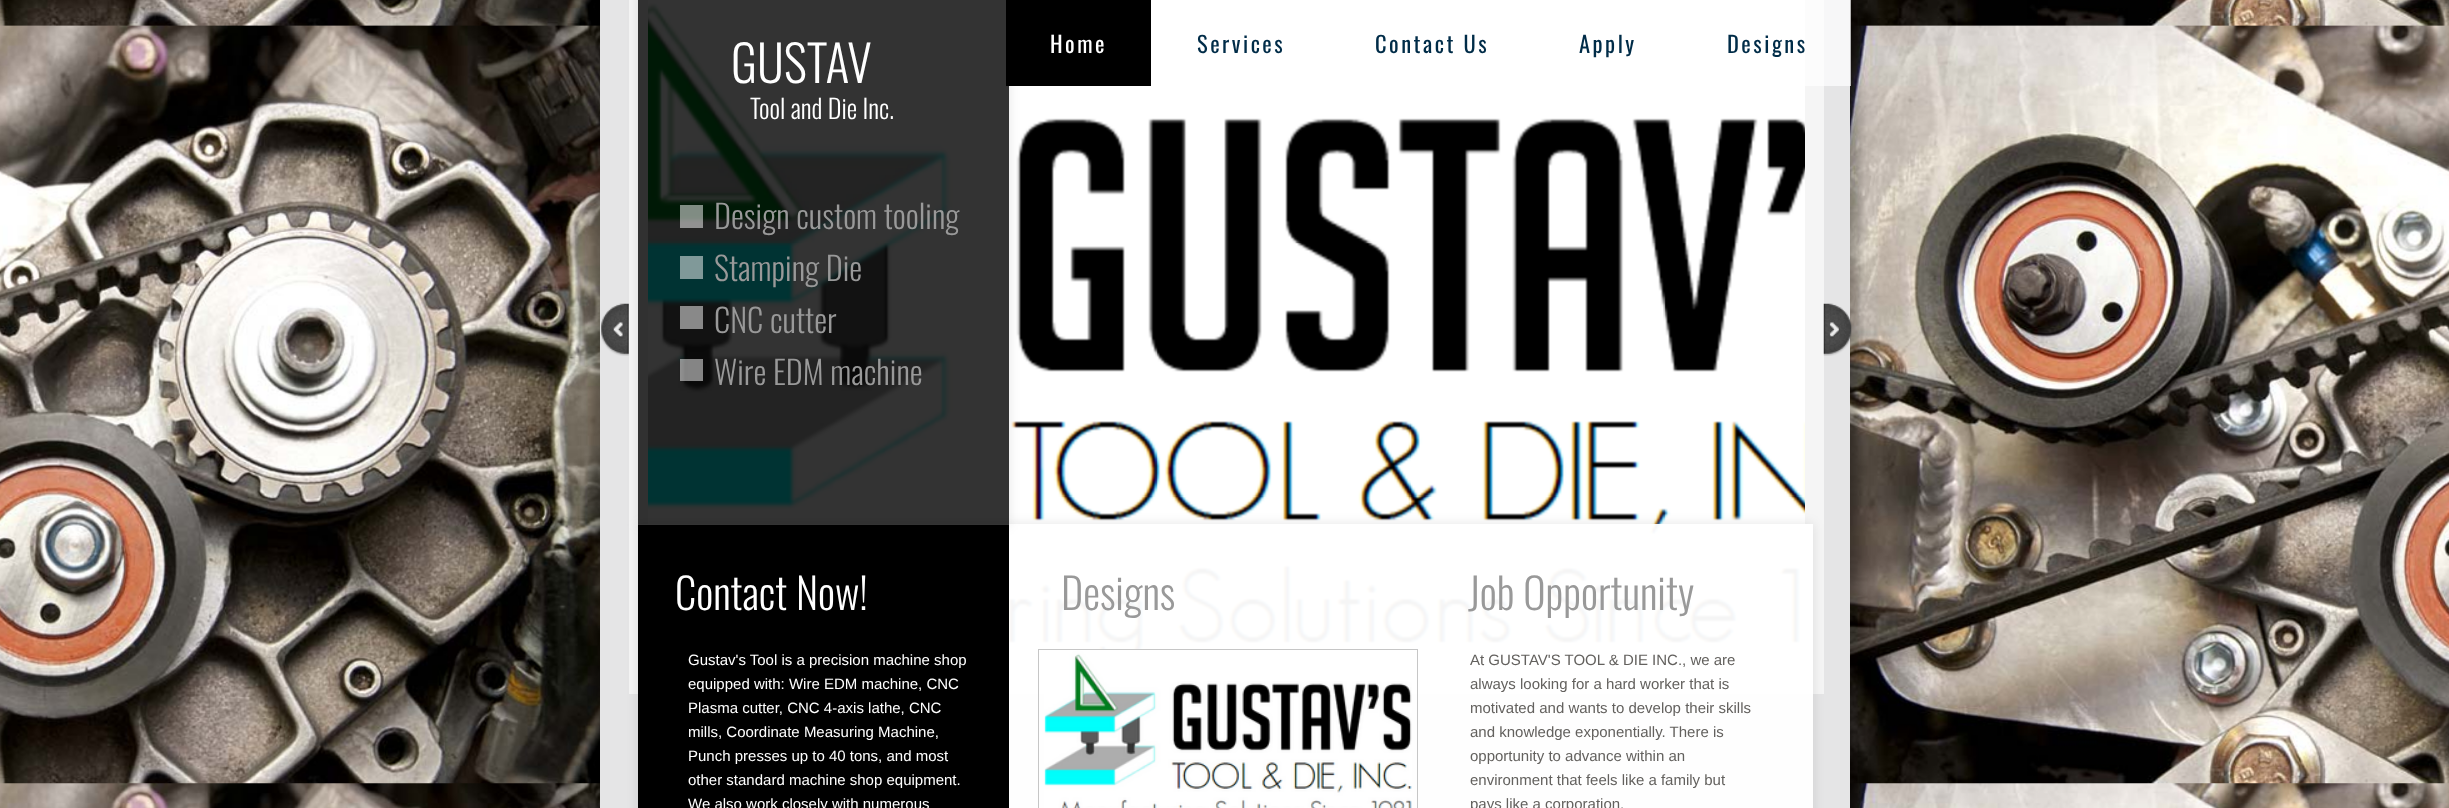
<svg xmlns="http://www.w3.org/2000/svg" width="2449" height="808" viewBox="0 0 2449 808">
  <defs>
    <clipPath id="clip1"><path d="M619 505H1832V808H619ZM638 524H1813V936H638Z" clip-rule="evenodd"/></clipPath>
    <clipPath id="clip2"><path d="M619 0H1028V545H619ZM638-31H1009V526H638Z" clip-rule="evenodd"/></clipPath>
  </defs>
  <rect width="100%" height="100%" fill="rgb(255,255,255)"/>
  <image x="0" y="0" width="2449" height="808" href="pic1.png"/>
  <rect x="593" y="-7" width="1265" height="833" fill="rgba(0,0,0,0.3)" filter="blur(6px)"/>
  <rect x="600" y="0" width="1250" height="808" fill="rgb(229,229,230)"/>
  <image x="601" y="303" width="28" height="53" href="pic2.png"/>
  <rect x="638.5" y="-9.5" width="1176" height="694" fill="none" stroke="rgb(245,245,245)" stroke-width="19"/>
  <image x="648" y="0" width="1157" height="675" href="pic3.png"/>
  <image x="1823" y="303" width="29" height="53" href="pic4.png"/>
  <g clip-path="url(#clip1)">
    <rect x="638" y="524" width="1175" height="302" fill="rgba(0,0,0,0.1)" filter="blur(6px)"/>
  </g>
  <rect x="638" y="524" width="1175" height="284" fill="rgba(255,255,255,0.95)"/>
  <rect x="638" y="525" width="371" height="283" fill="rgb(0,0,0)"/>
  <g clip-path="url(#clip2)">
    <rect x="638" y="-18" width="371" height="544" fill="rgba(0,0,0,0.1)" filter="blur(6px)"/>
  </g>
  <rect x="638" y="0" width="371" height="525" fill="rgba(0,0,0,0.8)"/>
  <rect x="1006" y="0" width="145" height="86" fill="rgb(0,0,0)"/>
  <text x="1050" y="53" font-family="Oswald" font-size="22.5" letter-spacing="2.5" fill="rgb(255,255,255)">Home</text>
  <g font-family="Oswald" font-size="22.5" letter-spacing="2.5" fill="rgb(0,44,72)">
    <text x="1197" y="53">Services</text>
    <text x="1375" y="53">Contact Us</text>
    <text x="1579" y="53">Apply</text>
  </g>
  <rect x="1805" y="0" width="46" height="86" fill="rgba(255,255,255,0.7)"/>
  <text x="1727" y="53" font-family="Oswald" font-size="22.5" letter-spacing="2.5" fill="rgb(0,44,72)">Designs</text>
  <text x="731" y="83" font-family="Oswald" font-size="50" font-weight="300" fill="rgb(255,255,255)">GUSTAV</text>
  <text x="750" y="119" font-family="Oswald" font-size="26.25" font-weight="300" fill="rgb(255,255,255)">Tool and Die Inc.</text>
  <rect x="680" y="205" width="23" height="23" fill="rgba(255,255,255,0.5)"/>
  <g font-family="Oswald" font-size="32.5" font-weight="300" fill="rgb(153,153,153)">
    <text>
      <tspan x="714" y="229">Design custom tooling</tspan>
      <tspan x="714" y="281">Stamping Die</tspan>
      <tspan x="714" y="333">CNC cutter</tspan>
      <tspan x="714" y="385">Wire EDM machine</tspan>
    </text>
  </g>
  <rect x="680" y="256" width="23" height="23" fill="rgb(128,153,153)"/>
  <rect x="680" y="306" width="23" height="23" fill="rgb(137,137,137)"/>
  <rect x="680" y="359" width="23" height="22" fill="rgba(255,255,255,0.5)"/>
  <text x="675" y="610" font-family="Oswald" font-size="42.5" font-weight="300" fill="rgb(255,255,255)">Contact Now!</text>
  <g font-family="Oswald" font-size="42.5" font-weight="300" fill="rgb(153,153,153)">
    <text x="1061" y="610">Designs</text>
    <text x="1468" y="610">Job Opportunity</text>
  </g>
  <g font-family="Liberation Sans" font-size="15" fill="rgb(255,255,255)">
    <text>
      <tspan x="688" y="665">Gustav's Tool is a precision machine shop</tspan>
      <tspan x="688" y="689">equipped with: Wire EDM machine, CNC</tspan>
      <tspan x="688" y="713">Plasma cutter, CNC 4-axis lathe, CNC</tspan>
      <tspan x="688" y="737">mills, Coordinate Measuring Machine,</tspan>
      <tspan x="688" y="761">Punch presses up to 40 tons, and most</tspan>
      <tspan x="688" y="785">other standard machine shop equipment.</tspan>
      <tspan x="688" y="809">We also work closely with numerous</tspan>
    </text>
  </g>
  <rect x="1038.5" y="649.5" width="379" height="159" fill="none" stroke="rgb(198,198,198)"/>
  <image x="1044" y="650" width="368" height="158" href="pic5.png"/>
  <g font-family="Liberation Sans" font-size="15" fill="rgb(99,97,94)">
    <text>
      <tspan x="1470" y="665">At GUSTAV'S TOOL &amp; DIE INC., we are</tspan>
      <tspan x="1470" y="689">always looking for a hard worker that is</tspan>
      <tspan x="1470" y="713">motivated and wants to develop their skills</tspan>
      <tspan x="1470" y="737">and knowledge exponentially. There is</tspan>
      <tspan x="1470" y="761">opportunity to advance within an</tspan>
      <tspan x="1470" y="785">environment that feels like a family but</tspan>
      <tspan x="1470" y="809">pays like a corporation.</tspan>
    </text>
  </g>
</svg>
